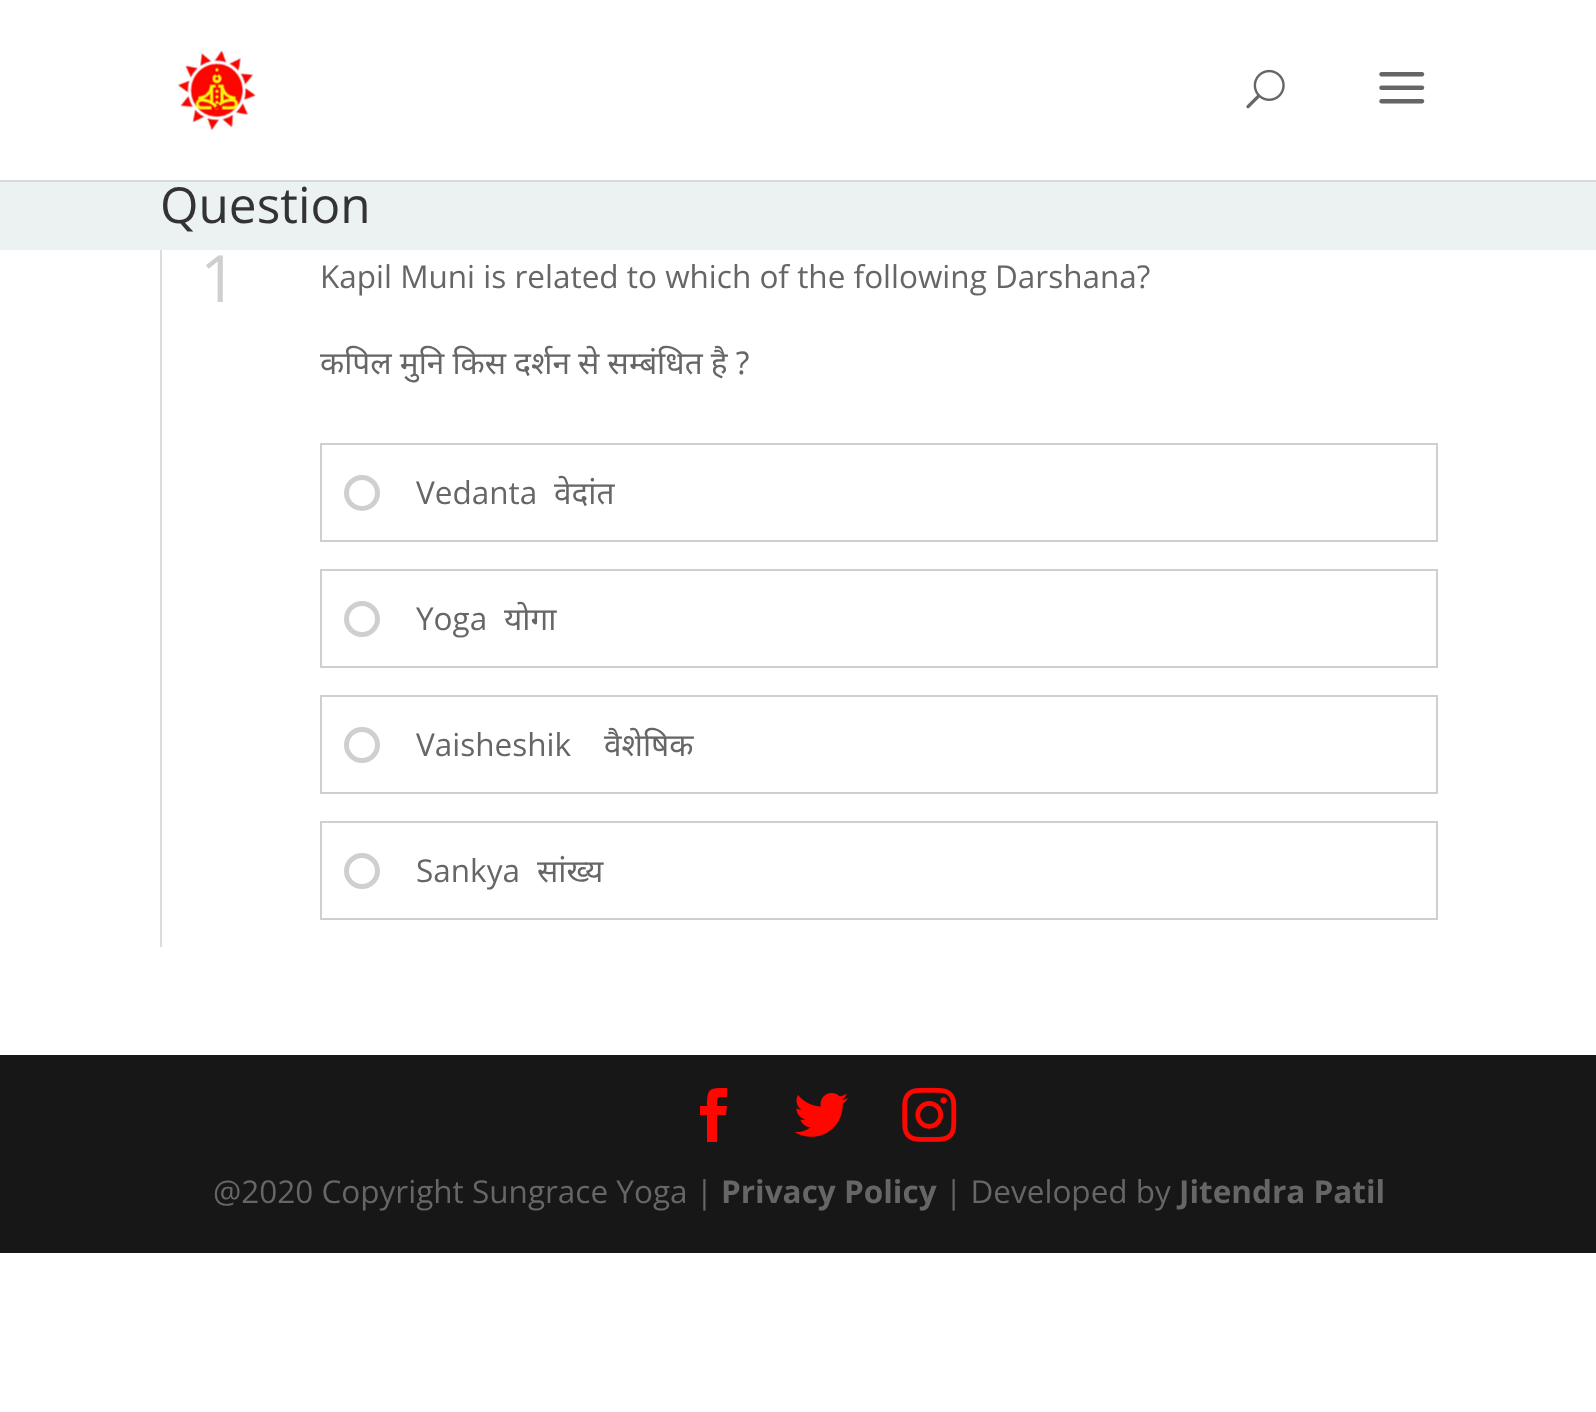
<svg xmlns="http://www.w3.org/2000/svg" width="1596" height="1412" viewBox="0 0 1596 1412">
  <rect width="100%" height="100%" fill="rgb(255,255,255)"/>
  <path d="M0 180V182H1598V2V180Z" fill="rgb(212,217,218)"/>
  <image x="177" y="50" width="79" height="80" href="pic1.png"/>
  <image x="1246" y="69" width="39" height="40" href="pic2.png"/>
  <image x="1379" y="72" width="46" height="32" href="pic3.png"/>
  <rect x="0" y="182" width="1596" height="68" fill="rgb(236,241,242)"/>
  <text x="160" y="223" font-family="Open Sans" font-size="49.5" fill="rgb(51,51,51)">Question</text>
  <rect x="160" y="250" width="2" height="697" fill="rgb(220,220,220)"/>
  <text x="200" y="302" font-family="Open Sans" font-size="65" fill="rgb(207,207,207)">1</text>
  <text x="320" y="288" font-family="Open Sans" font-size="31.5" fill="rgb(102,102,102)">Kapil Muni is related to which of the following Darshana?</text>
  <text x="320" y="374" font-family="Noto Sans" font-size="31.5" fill="rgb(102,102,102)">कपिल मुनि किस दर्शन से सम्बंधित है ?</text>
  <rect x="321" y="444" width="1116" height="97" fill="none" stroke="rgb(207,207,207)" stroke-width="2"/>
  <circle cx="362" cy="493" r="15.5" fill="none" stroke="rgb(207,207,207)" stroke-width="5"/>
  <text x="416" y="504" font-family="Open Sans" font-size="31.5" fill="rgb(102,102,102)">Vedanta</text>
  <text x="554" y="504" font-family="Noto Sans" font-size="31.5" fill="rgb(102,102,102)">वेदांत</text>
  <rect x="321" y="570" width="1116" height="97" fill="none" stroke="rgb(207,207,207)" stroke-width="2"/>
  <circle cx="362" cy="619" r="15.5" fill="none" stroke="rgb(207,207,207)" stroke-width="5"/>
  <text x="416" y="630" font-family="Open Sans" font-size="31.5" fill="rgb(102,102,102)">Yoga</text>
  <text x="504" y="630" font-family="Noto Sans" font-size="31.5" fill="rgb(102,102,102)">योगा</text>
  <rect x="321" y="696" width="1116" height="97" fill="none" stroke="rgb(207,207,207)" stroke-width="2"/>
  <circle cx="362" cy="745" r="15.5" fill="none" stroke="rgb(207,207,207)" stroke-width="5"/>
  <text x="416" y="756" font-family="Open Sans" font-size="31.5" fill="rgb(102,102,102)">Vaisheshik</text>
  <text x="604" y="756" font-family="Noto Sans" font-size="31.5" fill="rgb(102,102,102)">वैशेषिक</text>
  <rect x="321" y="822" width="1116" height="97" fill="none" stroke="rgb(207,207,207)" stroke-width="2"/>
  <circle cx="362" cy="871" r="15.5" fill="none" stroke="rgb(207,207,207)" stroke-width="5"/>
  <text x="416" y="882" font-family="Open Sans" font-size="31.5" fill="rgb(102,102,102)">Sankya</text>
  <text x="537" y="882" font-family="Noto Sans" font-size="31.5" fill="rgb(102,102,102)">सांख्य</text>
  <rect x="0" y="1055" width="1596" height="198" fill="rgb(23,23,23)"/>
  <path d="M707 1142H717V1115H726L727 1106H717C717 1096 717 1097 727 1097V1088C710 1088 707 1087 707 1106H700V1115H707Z" fill="rgb(255,6,0)"/>
  <image x="794" y="1092" width="55" height="45" href="pic4.png"/>
  <image x="902" y="1087" width="55" height="55" href="pic5.png"/>
  <text x="213" y="1203" font-family="Open Sans" font-size="31.5" fill="rgb(102,102,102)">@2020 Copyright Sungrace Yoga |</text>
  <text x="721" y="1203" font-family="Open Sans" font-size="31.5" font-weight="bold" fill="rgb(102,102,102)">Privacy Policy</text>
  <text x="945" y="1203" font-family="Open Sans" font-size="31.5" fill="rgb(102,102,102)">| Developed by</text>
  <text x="1179" y="1203" font-family="Open Sans" font-size="31.5" font-weight="bold" fill="rgb(102,102,102)">Jitendra Patil</text>
</svg>
